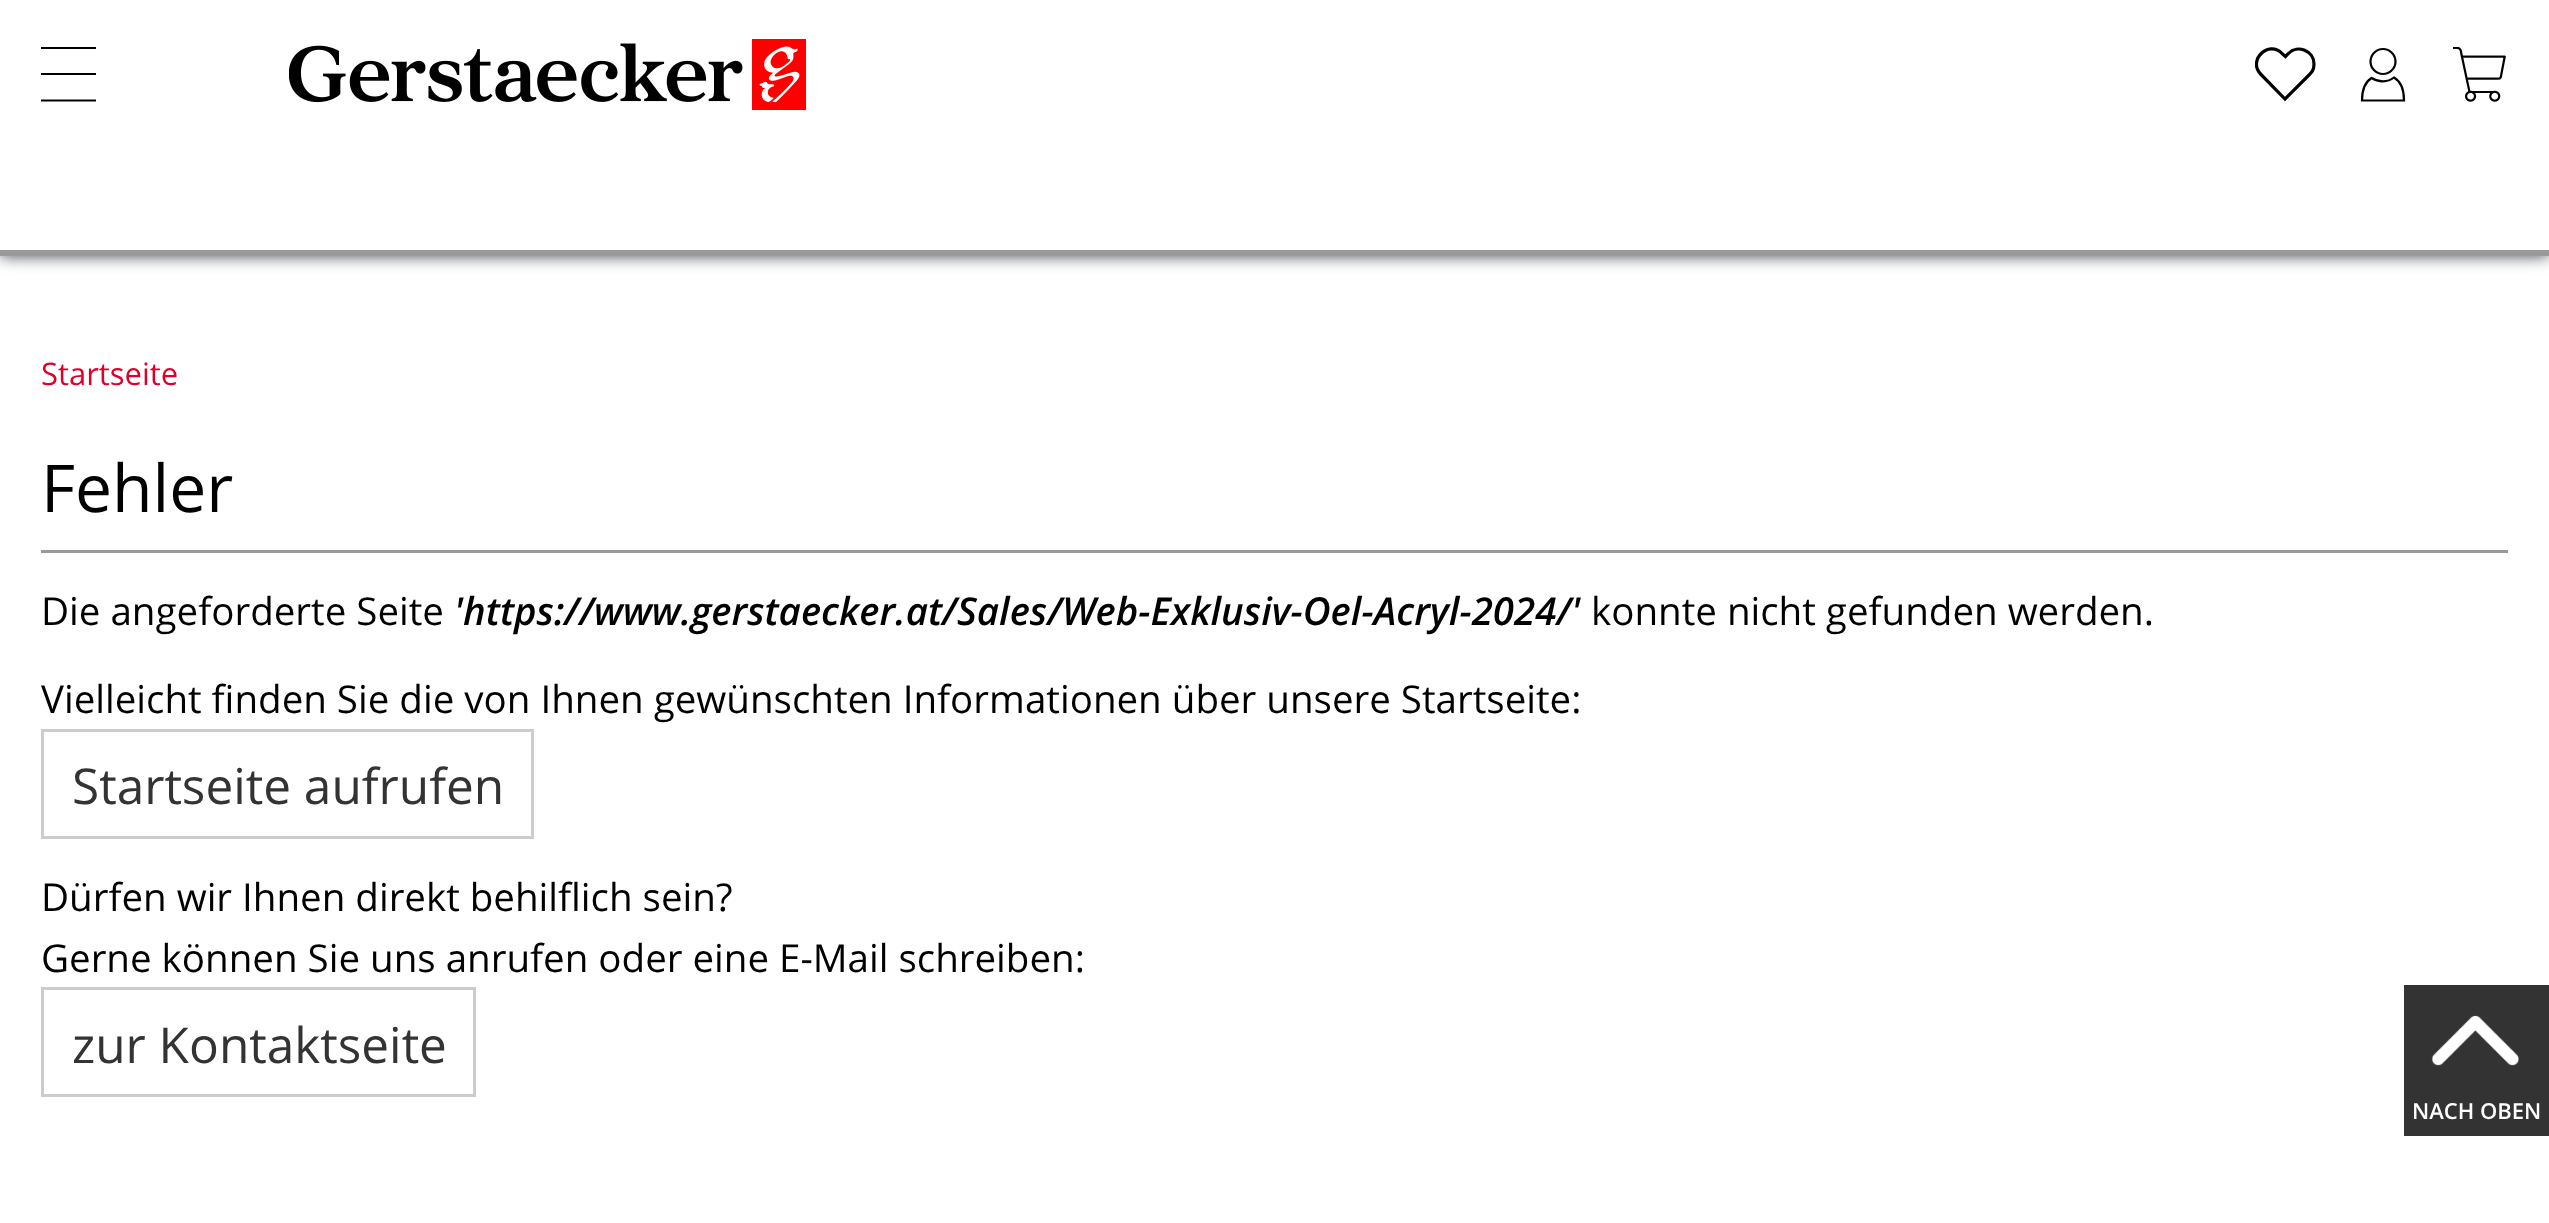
<svg xmlns="http://www.w3.org/2000/svg" width="2549" height="1223" viewBox="0 0 2549 1223">
  <defs>
    <clipPath id="clip1"><rect x="2255" y="47" width="61" height="55"/></clipPath>
  </defs>
  <rect width="100%" height="100%" fill="rgb(255,255,255)"/>
  <rect x="0" y="0" width="2549" height="256" fill="rgb(65,70,77)" filter="blur(8px)"/>
  <rect x="0" y="0" width="2549" height="250" fill="rgb(255,255,255)"/>
  <rect x="41" y="47" width="55" height="2" fill="rgb(0,0,0)"/>
  <rect x="41" y="73" width="55" height="2" fill="rgb(0,0,0)"/>
  <path d="M41 100.5H96" fill="none" stroke="rgb(0,0,0)" stroke-width="2.2"/>
  <image x="289" y="39" width="517" height="71" href="pic1.png"/>
  <g clip-path="url(#clip1)">
    <path d="M2314 64C2314 51 2297.5 44 2288.5 53.5L2285.5 56.5L2282 53.5C2268.5 39.5 2247 60.5 2261 74.5L2285 99L2309.5 74.5C2312.5 72 2314 68 2314 64Z" fill="none" stroke="rgb(0,0,0)" stroke-width="3.2"/>
  </g>
  <circle cx="2383" cy="61.5" r="12.5" fill="none" stroke="rgb(0,0,0)" stroke-width="2.2"/>
  <path d="M2394 77.5C2387.5 82.5 2378.5 82.5 2371.5 78C2363.5 83 2362 92 2362 100.5H2404C2404 91.5 2402.5 82.5 2394 77.5Z" fill="none" stroke="rgb(0,0,0)" stroke-width="2.2"/>
  <image x="2453" y="47" width="53" height="55" href="pic2.png"/>
  <rect x="0" y="250" width="2549" height="6" fill="rgb(153,153,153)"/>
  <text x="41" y="385" font-family="Open Sans" font-size="31" fill="rgb(223,0,41)">Startseite</text>
  <rect x="41" y="550" width="2467" height="3" fill="rgb(153,153,153)"/>
  <text x="41" y="512" font-family="Open Sans" font-size="66" fill="rgb(0,0,0)">Fehler</text>
  <text x="41" y="625" font-family="Open Sans" font-size="38.5" fill="rgb(0,0,0)">Die angeforderte Seite</text>
  <text x="454" y="625" font-family="Open Sans" font-size="38.5" font-weight="600" font-style="italic" fill="rgb(0,0,0)">'https://www.gerstaecker.at/Sales/Web-Exklusiv-Oel-Acryl-2024/'</text>
  <g font-family="Open Sans" font-size="38.5" fill="rgb(0,0,0)">
    <text x="1591" y="625">konnte nicht gefunden werden.</text>
    <text x="41" y="713">Vielleicht finden Sie die von Ihnen gewünschten Informationen über unsere Startseite:</text>
  </g>
  <rect x="42.5" y="730.5" width="490" height="107" fill="none" stroke="rgb(204,204,204)" stroke-width="3"/>
  <text x="72" y="804" font-family="Open Sans" font-size="49.5" fill="rgb(51,51,51)">Startseite aufrufen</text>
  <g font-family="Open Sans" font-size="38.5" fill="rgb(0,0,0)">
    <text>
      <tspan x="41" y="911">Dürfen wir Ihnen direkt behilflich sein?</tspan>
      <tspan x="41" y="972">Gerne können Sie uns anrufen oder eine E-Mail schreiben:</tspan>
    </text>
  </g>
  <rect x="42.5" y="988.5" width="432" height="107" fill="none" stroke="rgb(204,204,204)" stroke-width="3"/>
  <text x="72" y="1063" font-family="Open Sans" font-size="49.5" fill="rgb(51,51,51)">zur Kontaktseite</text>
  <rect x="2404" y="985" width="145" height="151" fill="rgb(51,51,51)"/>
  <image x="2431" y="1015" width="88" height="51" href="pic3.png"/>
  <text x="2412" y="1119" font-family="Open Sans" font-size="22" font-weight="600" fill="rgb(255,255,255)">NACH OBEN</text>
</svg>
